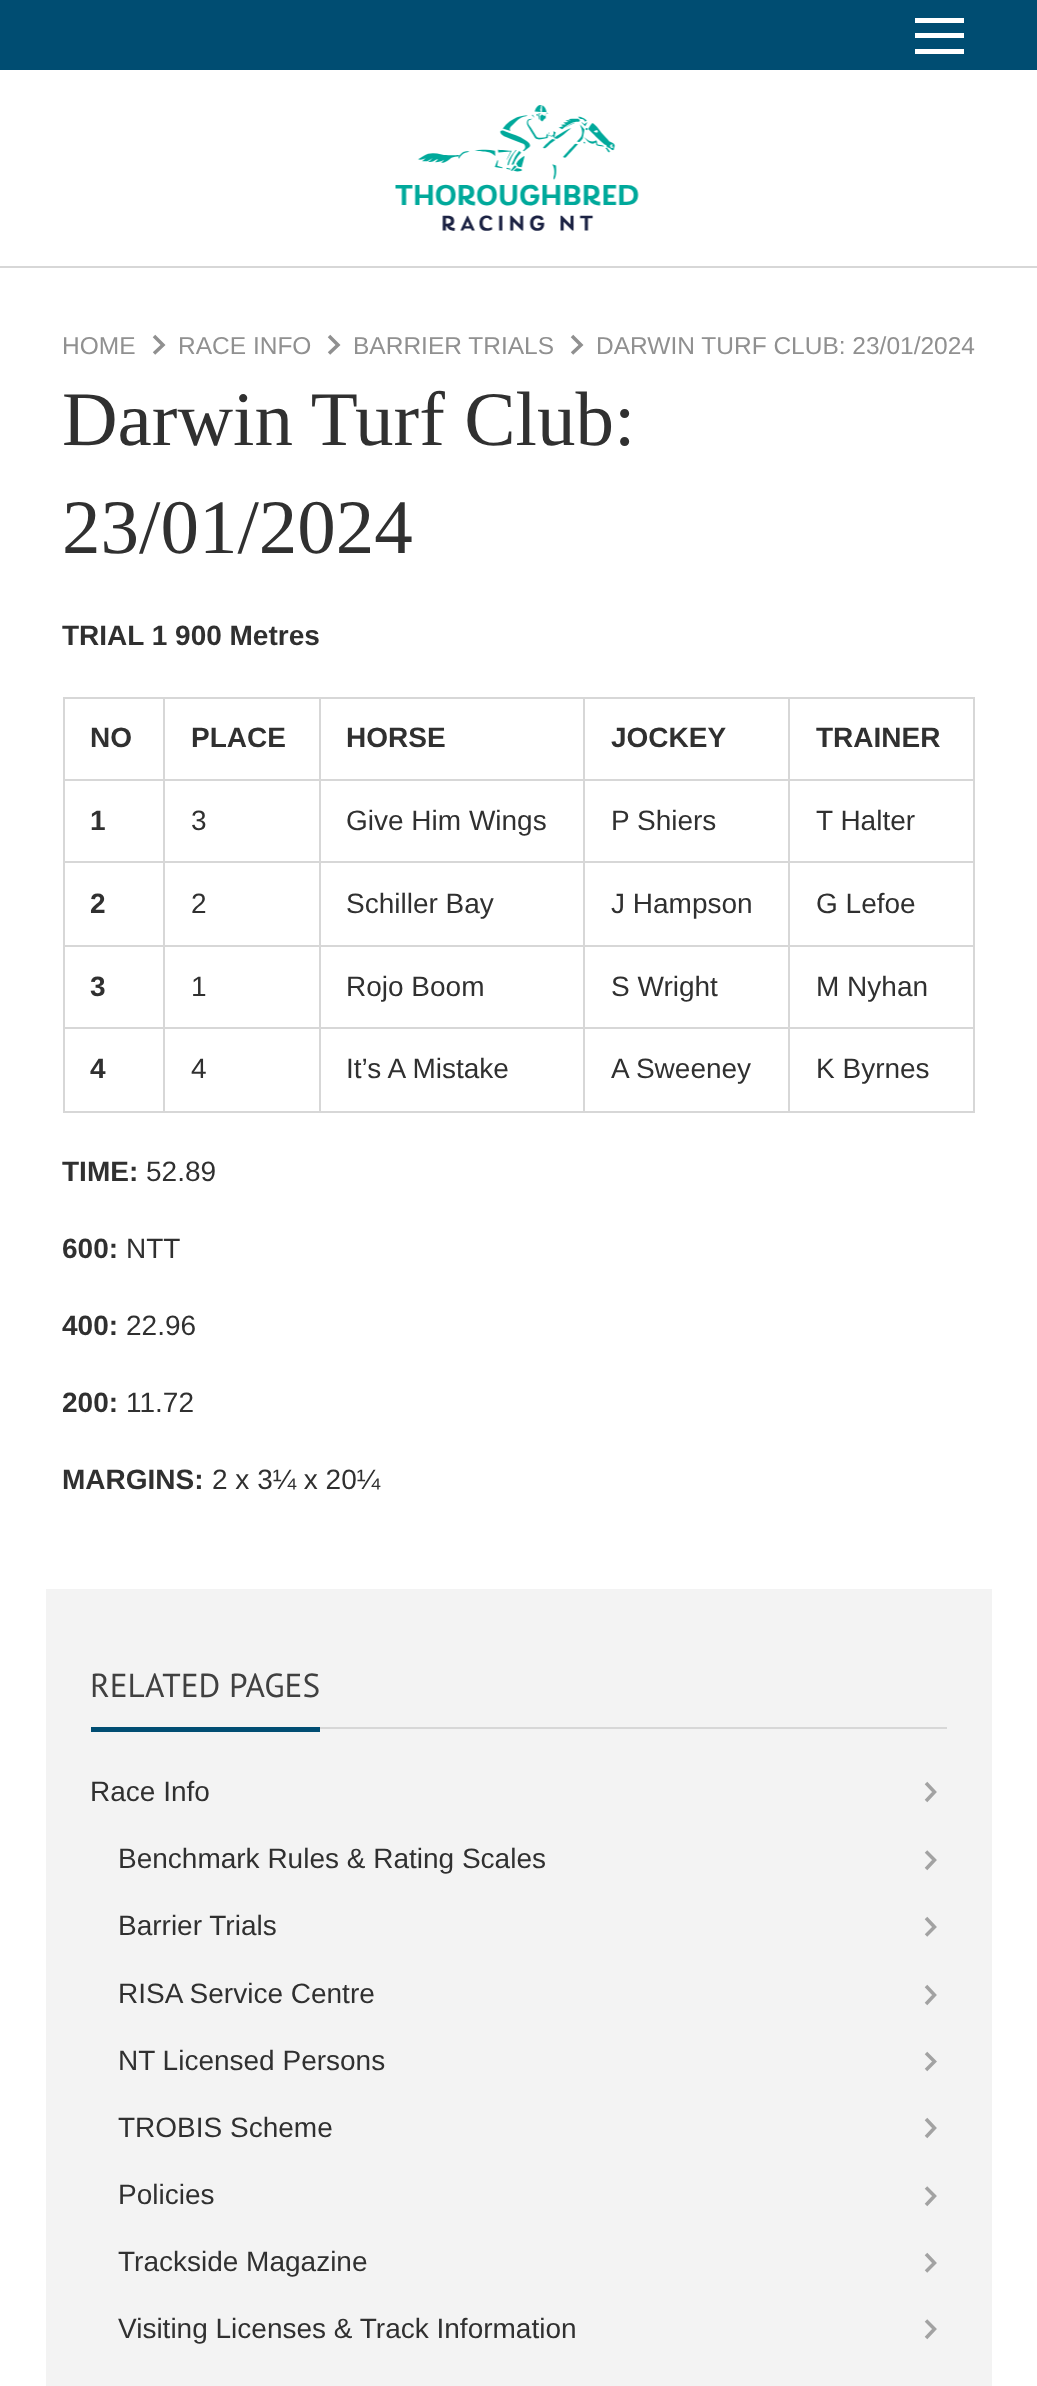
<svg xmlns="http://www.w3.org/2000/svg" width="1037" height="2386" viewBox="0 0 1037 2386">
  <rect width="100%" height="100%" fill="rgb(255,255,255)"/>
  <rect x="0" y="0" width="1037" height="70" fill="rgb(0,77,114)"/>
  <rect x="915" y="18" width="49" height="5" fill="rgb(255,255,255)"/>
  <rect x="915" y="33" width="49" height="5" fill="rgb(255,255,255)"/>
  <rect x="915" y="49" width="49" height="5" fill="rgb(255,255,255)"/>
  <rect x="0" y="266" width="1037" height="2" fill="rgb(215,215,215)"/>
  <image x="395" y="105" width="244" height="126" href="pic1.png"/>
  <text x="62" y="354" font-family="Liberation Sans" font-size="24.5" fill="rgb(144,144,144)">HOME</text>
  <path d="M154 336L163 345L154 353.5" fill="none" stroke="rgb(144,144,144)" stroke-width="3.5"/>
  <text x="178" y="354" font-family="Liberation Sans" font-size="24.5" fill="rgb(144,144,144)">RACE INFO</text>
  <path d="M329 336L338 345L329 353.5" fill="none" stroke="rgb(144,144,144)" stroke-width="3.5"/>
  <text x="353" y="354" font-family="Liberation Sans" font-size="24.5" fill="rgb(144,144,144)">BARRIER TRIALS</text>
  <path d="M572 336L581 345L572 353.5" fill="none" stroke="rgb(144,144,144)" stroke-width="3.5"/>
  <text x="596" y="354" font-family="Liberation Sans" font-size="24.5" fill="rgb(144,144,144)">DARWIN TURF CLUB: 23/01/2024</text>
  <g font-family="Liberation Serif" font-size="77" fill="rgb(48,48,48)">
    <text>
      <tspan x="62" y="445">Darwin Turf Club:</tspan>
      <tspan x="62" y="553">23/01/2024</tspan>
    </text>
  </g>
  <text x="62" y="645" font-family="Liberation Sans" font-size="28" font-weight="bold" fill="rgb(48,48,48)">TRIAL 1 900 Metres</text>
  <rect x="63" y="697" width="912" height="2" fill="rgb(215,215,215)"/>
  <rect x="973" y="697" width="2" height="416" fill="rgb(215,215,215)"/>
  <rect x="63" y="1111" width="912" height="2" fill="rgb(215,215,215)"/>
  <rect x="63" y="697" width="2" height="416" fill="rgb(215,215,215)"/>
  <text x="90" y="747" font-family="Liberation Sans" font-size="28" font-weight="bold" fill="rgb(48,48,48)">NO</text>
  <rect x="788" y="779" width="187" height="2" fill="rgb(215,215,215)"/>
  <rect x="788" y="861" width="187" height="2" fill="rgb(215,215,215)"/>
  <rect x="788" y="945" width="187" height="2" fill="rgb(215,215,215)"/>
  <rect x="788" y="1027" width="187" height="2" fill="rgb(215,215,215)"/>
  <rect x="788" y="1027" width="2" height="86" fill="rgb(215,215,215)"/>
  <rect x="583" y="1027" width="206" height="2" fill="rgb(215,215,215)"/>
  <rect x="788" y="945" width="2" height="84" fill="rgb(215,215,215)"/>
  <rect x="583" y="945" width="206" height="2" fill="rgb(215,215,215)"/>
  <rect x="788" y="861" width="2" height="86" fill="rgb(215,215,215)"/>
  <rect x="583" y="861" width="206" height="2" fill="rgb(215,215,215)"/>
  <rect x="788" y="779" width="2" height="84" fill="rgb(215,215,215)"/>
  <rect x="583" y="779" width="206" height="2" fill="rgb(215,215,215)"/>
  <rect x="583" y="1027" width="2" height="86" fill="rgb(215,215,215)"/>
  <rect x="319" y="1027" width="266" height="2" fill="rgb(215,215,215)"/>
  <rect x="583" y="945" width="2" height="84" fill="rgb(215,215,215)"/>
  <rect x="319" y="945" width="266" height="2" fill="rgb(215,215,215)"/>
  <rect x="583" y="861" width="2" height="86" fill="rgb(215,215,215)"/>
  <rect x="319" y="861" width="266" height="2" fill="rgb(215,215,215)"/>
  <rect x="583" y="779" width="2" height="84" fill="rgb(215,215,215)"/>
  <rect x="319" y="779" width="266" height="2" fill="rgb(215,215,215)"/>
  <rect x="319" y="1027" width="2" height="86" fill="rgb(215,215,215)"/>
  <rect x="163" y="1027" width="157" height="2" fill="rgb(215,215,215)"/>
  <rect x="319" y="945" width="2" height="84" fill="rgb(215,215,215)"/>
  <rect x="163" y="945" width="157" height="2" fill="rgb(215,215,215)"/>
  <rect x="319" y="861" width="2" height="86" fill="rgb(215,215,215)"/>
  <rect x="163" y="861" width="157" height="2" fill="rgb(215,215,215)"/>
  <rect x="319" y="779" width="2" height="84" fill="rgb(215,215,215)"/>
  <rect x="163" y="779" width="157" height="2" fill="rgb(215,215,215)"/>
  <rect x="163" y="1027" width="2" height="86" fill="rgb(215,215,215)"/>
  <rect x="63" y="1027" width="102" height="2" fill="rgb(215,215,215)"/>
  <rect x="163" y="945" width="2" height="84" fill="rgb(215,215,215)"/>
  <rect x="63" y="945" width="102" height="2" fill="rgb(215,215,215)"/>
  <rect x="163" y="861" width="2" height="86" fill="rgb(215,215,215)"/>
  <rect x="63" y="861" width="102" height="2" fill="rgb(215,215,215)"/>
  <rect x="163" y="779" width="2" height="84" fill="rgb(215,215,215)"/>
  <rect x="63" y="779" width="102" height="2" fill="rgb(215,215,215)"/>
  <rect x="163" y="697" width="2" height="84" fill="rgb(215,215,215)"/>
  <text x="191" y="747" font-family="Liberation Sans" font-size="28" font-weight="bold" fill="rgb(48,48,48)">PLACE</text>
  <rect x="319" y="697" width="2" height="84" fill="rgb(215,215,215)"/>
  <text x="346" y="747" font-family="Liberation Sans" font-size="28" font-weight="bold" fill="rgb(48,48,48)">HORSE</text>
  <rect x="583" y="697" width="2" height="84" fill="rgb(215,215,215)"/>
  <text x="611" y="747" font-family="Liberation Sans" font-size="28" font-weight="bold" fill="rgb(48,48,48)">JOCKEY</text>
  <rect x="788" y="697" width="2" height="84" fill="rgb(215,215,215)"/>
  <g font-family="Liberation Sans" font-size="28" font-weight="bold" fill="rgb(48,48,48)">
    <text x="816" y="747">TRAINER</text>
    <text x="90" y="830">1</text>
  </g>
  <g font-family="Liberation Sans" font-size="28" fill="rgb(48,48,48)">
    <text x="191" y="830">3</text>
    <text x="346" y="830">Give Him Wings</text>
    <text x="611" y="830">P Shiers</text>
    <text x="816" y="830">T Halter</text>
  </g>
  <text x="90" y="913" font-family="Liberation Sans" font-size="28" font-weight="bold" fill="rgb(48,48,48)">2</text>
  <g font-family="Liberation Sans" font-size="28" fill="rgb(48,48,48)">
    <text x="191" y="913">2</text>
    <text x="346" y="913">Schiller Bay</text>
    <text x="611" y="913">J Hampson</text>
    <text x="816" y="913">G Lefoe</text>
  </g>
  <text x="90" y="996" font-family="Liberation Sans" font-size="28" font-weight="bold" fill="rgb(48,48,48)">3</text>
  <g font-family="Liberation Sans" font-size="28" fill="rgb(48,48,48)">
    <text x="191" y="996">1</text>
    <text x="346" y="996">Rojo Boom</text>
    <text x="611" y="996">S Wright</text>
    <text x="816" y="996">M Nyhan</text>
  </g>
  <text x="90" y="1078" font-family="Liberation Sans" font-size="28" font-weight="bold" fill="rgb(48,48,48)">4</text>
  <g font-family="Liberation Sans" font-size="28" fill="rgb(48,48,48)">
    <text x="191" y="1078">4</text>
    <text x="346" y="1078">It’s A Mistake</text>
    <text x="611" y="1078">A Sweeney</text>
    <text x="816" y="1078">K Byrnes</text>
  </g>
  <text x="62" y="1181" font-family="Liberation Sans" font-size="28" font-weight="bold" fill="rgb(48,48,48)">TIME:</text>
  <text x="146" y="1181" font-family="Liberation Sans" font-size="28" fill="rgb(48,48,48)">52.89</text>
  <text x="62" y="1258" font-family="Liberation Sans" font-size="28" font-weight="bold" fill="rgb(48,48,48)">600:</text>
  <text x="126" y="1258" font-family="Liberation Sans" font-size="28" fill="rgb(48,48,48)">NTT</text>
  <text x="62" y="1335" font-family="Liberation Sans" font-size="28" font-weight="bold" fill="rgb(48,48,48)">400:</text>
  <text x="126" y="1335" font-family="Liberation Sans" font-size="28" fill="rgb(48,48,48)">22.96</text>
  <text x="62" y="1412" font-family="Liberation Sans" font-size="28" font-weight="bold" fill="rgb(48,48,48)">200:</text>
  <text x="126" y="1412" font-family="Liberation Sans" font-size="28" fill="rgb(48,48,48)">11.72</text>
  <text x="62" y="1489" font-family="Liberation Sans" font-size="28" font-weight="bold" fill="rgb(48,48,48)">MARGINS:</text>
  <text x="212" y="1489" font-family="Liberation Sans" font-size="28" fill="rgb(48,48,48)">2 x 3¼ x 20¼</text>
  <rect x="46" y="1589" width="946" height="797" fill="rgb(243,243,243)"/>
  <rect x="320" y="1727" width="627" height="2" fill="rgb(215,215,215)"/>
  <text x="90" y="1697" font-family="PT Sans" font-size="33.25" fill="rgb(64,64,64)">RELATED PAGES</text>
  <rect x="91" y="1727" width="229" height="5" fill="rgb(0,77,114)"/>
  <text x="90" y="1801" font-family="Liberation Sans" font-size="28" fill="rgb(48,48,48)">Race Info</text>
  <path d="M926 1783L934.5 1792L926 1801" fill="none" stroke="rgb(162,162,162)" stroke-width="3.5"/>
  <text x="118" y="1868" font-family="Liberation Sans" font-size="28" fill="rgb(48,48,48)">Benchmark Rules &amp; Rating Scales</text>
  <path d="M926 1851.5L934.5 1860L926 1869" fill="none" stroke="rgb(162,162,162)" stroke-width="3.5"/>
  <text x="118" y="1935" font-family="Liberation Sans" font-size="28" fill="rgb(48,48,48)">Barrier Trials</text>
  <path d="M926 1918L934.5 1927L926 1935.5" fill="none" stroke="rgb(162,162,162)" stroke-width="3.5"/>
  <text x="118" y="2003" font-family="Liberation Sans" font-size="28" fill="rgb(48,48,48)">RISA Service Centre</text>
  <path d="M926 1986L934.5 1995L926 2004" fill="none" stroke="rgb(162,162,162)" stroke-width="3.5"/>
  <text x="118" y="2070" font-family="Liberation Sans" font-size="28" fill="rgb(48,48,48)">NT Licensed Persons</text>
  <path d="M926 2053L934.5 2061.5L926 2070" fill="none" stroke="rgb(162,162,162)" stroke-width="3.5"/>
  <text x="118" y="2137" font-family="Liberation Sans" font-size="28" fill="rgb(48,48,48)">TROBIS Scheme</text>
  <path d="M926 2119L934.5 2128L926 2137" fill="none" stroke="rgb(162,162,162)" stroke-width="3.5"/>
  <text x="118" y="2204" font-family="Liberation Sans" font-size="28" fill="rgb(48,48,48)">Policies</text>
  <path d="M926 2187.5L934.5 2196L926 2205" fill="none" stroke="rgb(162,162,162)" stroke-width="3.5"/>
  <text x="118" y="2271" font-family="Liberation Sans" font-size="28" fill="rgb(48,48,48)">Trackside Magazine</text>
  <path d="M926 2254L934.5 2263L926 2271.5" fill="none" stroke="rgb(162,162,162)" stroke-width="3.5"/>
  <text x="118" y="2338" font-family="Liberation Sans" font-size="28" fill="rgb(48,48,48)">Visiting Licenses &amp; Track Information</text>
  <path d="M926 2320.5L934.5 2329L926 2338" fill="none" stroke="rgb(162,162,162)" stroke-width="3.5"/>
</svg>
